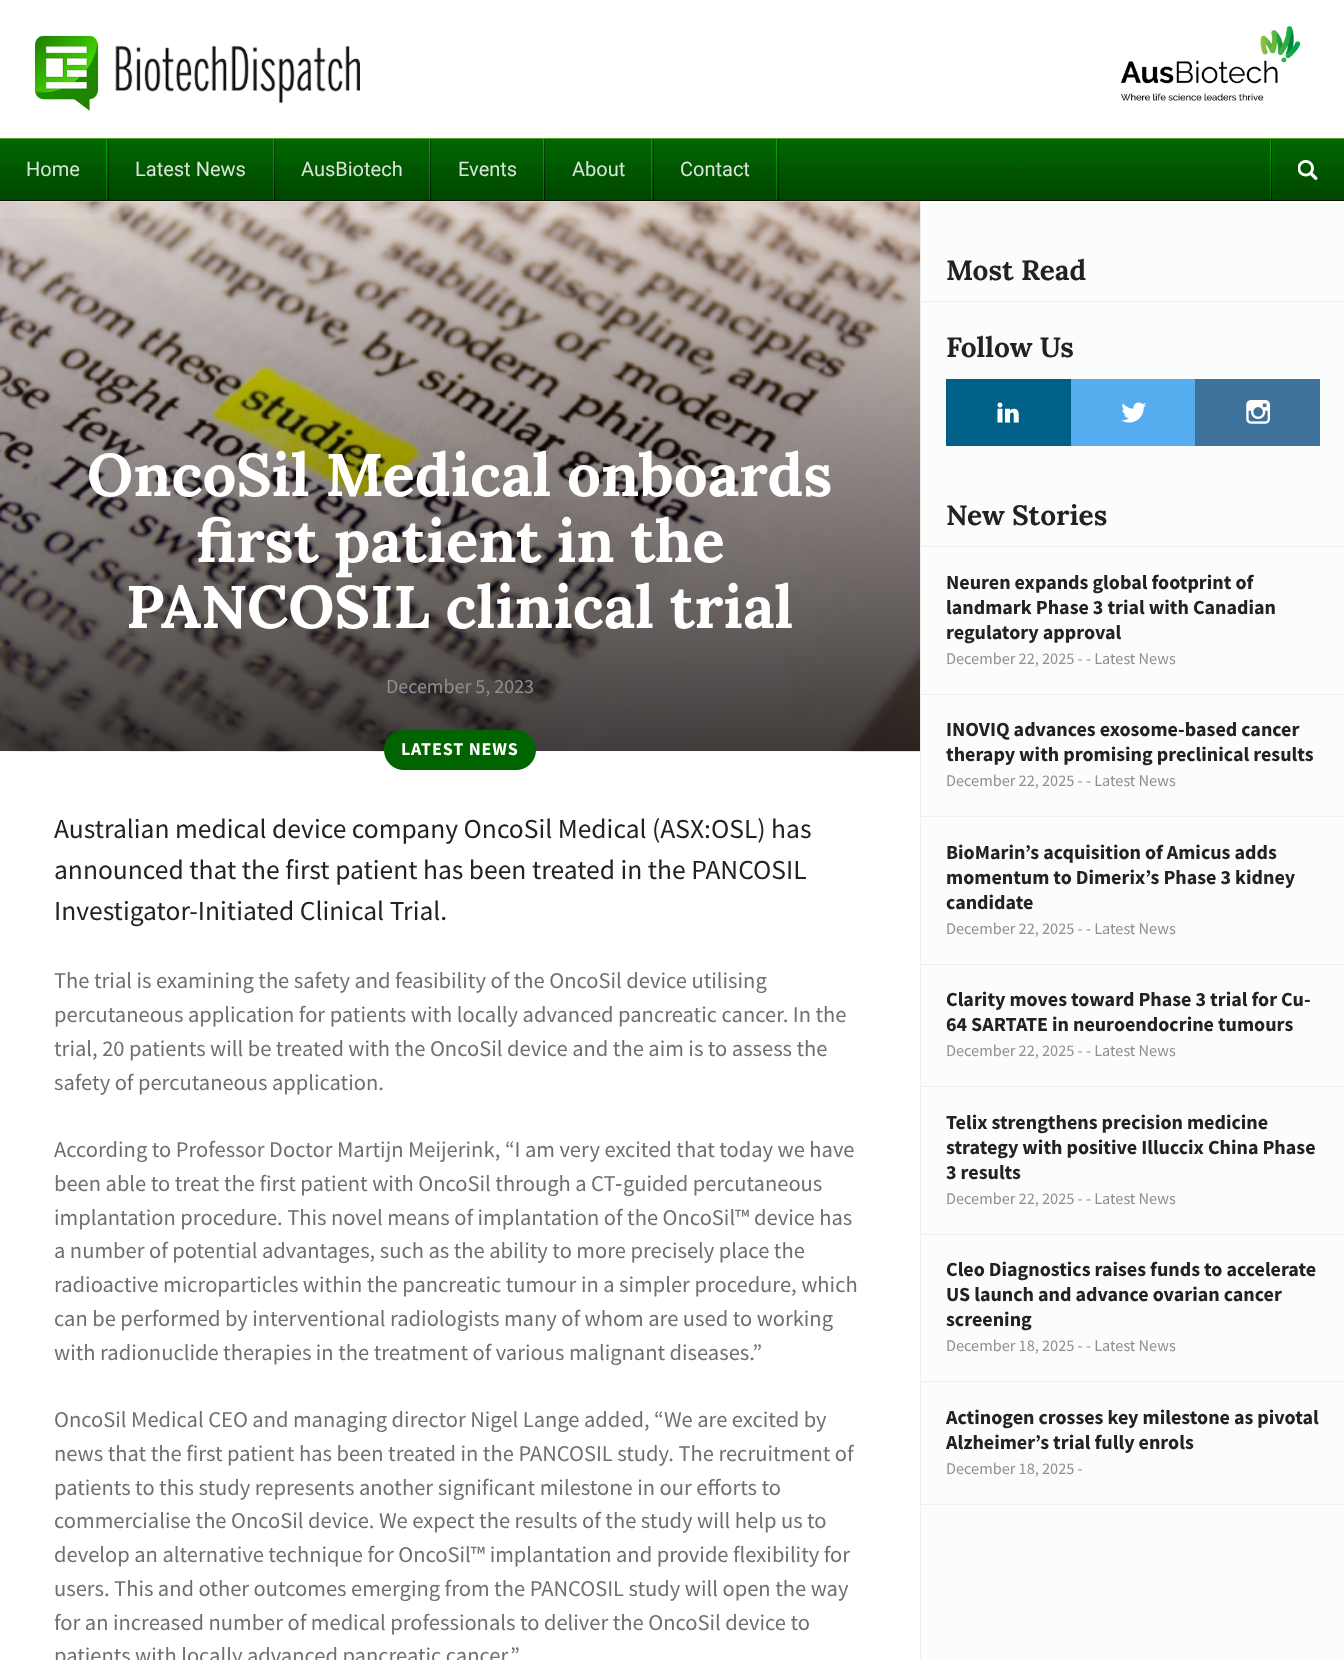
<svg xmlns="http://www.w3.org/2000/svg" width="1344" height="1660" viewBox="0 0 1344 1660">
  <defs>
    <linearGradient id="g1" gradientUnits="userSpaceOnUse" x1="673" y1="139" x2="673" y2="200"><stop offset="0" stop-color="rgb(0,105,0)"/><stop offset="1" stop-color="rgb(0,69,0)"/></linearGradient>
    <linearGradient id="g2" gradientUnits="userSpaceOnUse" x1="107" y1="139" x2="107" y2="200"><stop offset="0" stop-color="rgb(0,170,0)"/><stop offset="1" stop-color="rgb(0,110,0)"/></linearGradient>
    <linearGradient id="g3" gradientUnits="userSpaceOnUse" x1="108" y1="139" x2="108" y2="200"><stop offset="0" stop-color="rgb(0,75,0)"/><stop offset="1" stop-color="rgb(0,24,0)"/></linearGradient>
    <linearGradient id="g4" gradientUnits="userSpaceOnUse" x1="273" y1="139" x2="273" y2="200"><stop offset="0" stop-color="rgb(0,170,0)"/><stop offset="1" stop-color="rgb(0,110,0)"/></linearGradient>
    <linearGradient id="g5" gradientUnits="userSpaceOnUse" x1="274" y1="139" x2="274" y2="200"><stop offset="0" stop-color="rgb(0,75,0)"/><stop offset="1" stop-color="rgb(0,24,0)"/></linearGradient>
    <linearGradient id="g6" gradientUnits="userSpaceOnUse" x1="429" y1="139" x2="429" y2="200"><stop offset="0" stop-color="rgb(0,170,0)"/><stop offset="1" stop-color="rgb(0,110,0)"/></linearGradient>
    <linearGradient id="g7" gradientUnits="userSpaceOnUse" x1="431" y1="139" x2="431" y2="200"><stop offset="0" stop-color="rgb(0,75,0)"/><stop offset="1" stop-color="rgb(0,24,0)"/></linearGradient>
    <linearGradient id="g8" gradientUnits="userSpaceOnUse" x1="543" y1="139" x2="543" y2="200"><stop offset="0" stop-color="rgb(0,170,0)"/><stop offset="1" stop-color="rgb(0,110,0)"/></linearGradient>
    <linearGradient id="g9" gradientUnits="userSpaceOnUse" x1="544" y1="139" x2="544" y2="200"><stop offset="0" stop-color="rgb(0,75,0)"/><stop offset="1" stop-color="rgb(0,24,0)"/></linearGradient>
    <linearGradient id="g10" gradientUnits="userSpaceOnUse" x1="652" y1="139" x2="652" y2="200"><stop offset="0" stop-color="rgb(0,170,0)"/><stop offset="1" stop-color="rgb(0,110,0)"/></linearGradient>
    <linearGradient id="g11" gradientUnits="userSpaceOnUse" x1="653" y1="139" x2="653" y2="200"><stop offset="0" stop-color="rgb(0,75,0)"/><stop offset="1" stop-color="rgb(0,24,0)"/></linearGradient>
    <linearGradient id="g12" gradientUnits="userSpaceOnUse" x1="777" y1="139" x2="777" y2="200"><stop offset="0" stop-color="rgb(0,170,0)"/><stop offset="1" stop-color="rgb(0,110,0)"/></linearGradient>
    <linearGradient id="g13" gradientUnits="userSpaceOnUse" x1="778" y1="139" x2="778" y2="200"><stop offset="0" stop-color="rgb(0,75,0)"/><stop offset="1" stop-color="rgb(0,24,0)"/></linearGradient>
    <linearGradient id="g14" gradientUnits="userSpaceOnUse" x1="1271" y1="139" x2="1271" y2="200"><stop offset="0" stop-color="rgb(0,170,0)"/><stop offset="1" stop-color="rgb(0,110,0)"/></linearGradient>
    <linearGradient id="g15" gradientUnits="userSpaceOnUse" x1="1272" y1="139" x2="1272" y2="200"><stop offset="0" stop-color="rgb(0,75,0)"/><stop offset="1" stop-color="rgb(0,24,0)"/></linearGradient>
    <linearGradient id="g16" gradientUnits="userSpaceOnUse" x1="460" y1="201" x2="460" y2="751"><stop offset="0" stop-color="rgb(0,0,0)" stop-opacity="0"/><stop offset="1" stop-color="rgb(0,0,0)" stop-opacity="0.7"/></linearGradient>
  </defs>
  <rect width="100%" height="100%" fill="rgb(255,255,255)"/>
  <rect x="0" y="201" width="920" height="1" fill="rgb(230,230,230)"/>
  <image x="35" y="35" width="325" height="76" href="pic1.png"/>
  <image x="1120" y="26" width="181" height="75" href="pic2.png"/>
  <rect x="0" y="139" width="1344" height="61" fill="url(#g1)"/>
  <rect x="0" y="138" width="1344" height="1" fill="rgb(84,159,45)"/>
  <rect x="0" y="200" width="1344" height="1" fill="rgb(0,24,0)"/>
  <text x="26" y="176" font-family="Roboto" font-size="20" fill="rgb(217,230,217)">Home</text>
  <rect x="106" y="139" width="1" height="61" fill="url(#g2)"/>
  <rect x="108" y="139" width="1" height="61" fill="url(#g3)"/>
  <text x="135" y="176" font-family="Roboto" font-size="20" fill="rgb(217,230,217)">Latest News</text>
  <rect x="273" y="139" width="1" height="61" fill="url(#g4)"/>
  <rect x="274" y="139" width="1" height="61" fill="url(#g5)"/>
  <text x="301" y="176" font-family="Roboto" font-size="20" fill="rgb(217,230,217)">AusBiotech</text>
  <rect x="429" y="139" width="1" height="61" fill="url(#g6)"/>
  <rect x="430" y="139" width="1" height="61" fill="url(#g7)"/>
  <text x="458" y="176" font-family="Roboto" font-size="20" fill="rgb(217,230,217)">Events</text>
  <rect x="543" y="139" width="1" height="61" fill="url(#g8)"/>
  <rect x="544" y="139" width="1" height="61" fill="url(#g9)"/>
  <text x="572" y="176" font-family="Roboto" font-size="20" fill="rgb(217,230,217)">About</text>
  <rect x="651" y="139" width="1" height="61" fill="url(#g10)"/>
  <rect x="653" y="139" width="1" height="61" fill="url(#g11)"/>
  <text x="680" y="176" font-family="Roboto" font-size="20" fill="rgb(217,230,217)">Contact</text>
  <rect x="776" y="139" width="1" height="61" fill="url(#g12)"/>
  <rect x="778" y="139" width="1" height="61" fill="url(#g13)"/>
  <rect x="1270" y="139" width="1" height="61" fill="url(#g14)"/>
  <rect x="1271" y="139" width="1" height="61" fill="url(#g15)"/>
  <image x="1298" y="160" width="20" height="20" href="pic3.png"/>
  <image x="0" y="201" width="920" height="551" href="pic4.png"/>
  <rect x="0" y="218" width="920" height="533" fill="url(#g16)"/>
  <g font-family="Lora" font-size="60" font-weight="bold" fill="rgb(255,255,255)">
    <text x="87" y="496">OncoSil Medical onboards</text>
    <text x="196" y="562">first patient in the</text>
    <text x="126" y="628">PANCOSIL clinical trial</text>
  </g>
  <text x="386" y="693" font-family="Source Sans Pro" font-size="20" fill="rgb(142,142,147)">December 5, 2023</text>
  <rect x="384" y="730" width="152" height="40" rx="20" fill="rgb(0,100,0)"/>
  <text x="401" y="755" font-family="Source Sans Pro" font-size="18" font-weight="bold" letter-spacing="0.9" fill="rgb(255,255,255)">LATEST NEWS</text>
  <g font-family="Source Sans Pro" font-size="27.5" fill="rgb(34,34,34)">
    <text>
      <tspan x="54" y="838">Australian medical device company OncoSil Medical (ASX:OSL) has</tspan>
      <tspan x="54" y="879">announced that the first patient has been treated in the PANCOSIL</tspan>
      <tspan x="54" y="920">Investigator-Initiated Clinical Trial.</tspan>
    </text>
  </g>
  <g font-family="Source Sans Pro" font-size="22.5" fill="rgb(111,111,115)">
    <text>
      <tspan x="54" y="988">The trial is examining the safety and feasibility of the OncoSil device utilising</tspan>
      <tspan x="54" y="1022">percutaneous application for patients with locally advanced pancreatic cancer. In the</tspan>
      <tspan x="54" y="1056">trial, 20 patients will be treated with the OncoSil device and the aim is to assess the</tspan>
      <tspan x="54" y="1090">safety of percutaneous application.</tspan>
    </text>
    <text>
      <tspan x="54" y="1157">According to Professor Doctor Martijn Meijerink, “I am very excited that today we have</tspan>
      <tspan x="54" y="1191">been able to treat the first patient with OncoSil through a CT</tspan>
    </text>
  </g>
  <text x="615" y="1191" font-family="Liberation Sans" font-size="22.5" fill="rgb(111,111,115)">‐</text>
  <g font-family="Source Sans Pro" font-size="22.5" fill="rgb(111,111,115)">
    <text x="623" y="1191">guided percutaneous</text>
    <text>
      <tspan x="54" y="1225">implantation procedure. This novel means of implantation of the OncoSil™ device has</tspan>
      <tspan x="54" y="1258">a number of potential advantages, such as the ability to more precisely place the</tspan>
      <tspan x="54" y="1292">radioactive microparticles within the pancreatic tumour in a simpler procedure, which</tspan>
      <tspan x="54" y="1326">can be performed by interventional radiologists many of whom are used to working</tspan>
      <tspan x="54" y="1360">with radionuclide therapies in the treatment of various malignant diseases.”</tspan>
    </text>
    <text>
      <tspan x="54" y="1427">OncoSil Medical CEO and managing director Nigel Lange added, “We are excited by</tspan>
      <tspan x="54" y="1461">news that the first patient has been treated in the PANCOSIL study. The recruitment of</tspan>
      <tspan x="54" y="1495">patients to this study represents another significant milestone in our efforts to</tspan>
      <tspan x="54" y="1528">commercialise the OncoSil device. We expect the results of the study will help us to</tspan>
      <tspan x="54" y="1562">develop an alternative technique for OncoSil™ implantation and provide flexibility for</tspan>
      <tspan x="54" y="1596">users. This and other outcomes emerging from the PANCOSIL study will open the way</tspan>
      <tspan x="54" y="1630">for an increased number of medical professionals to deliver the OncoSil device to</tspan>
      <tspan x="54" y="1663">patients with locally advanced pancreatic cancer.”</tspan>
    </text>
  </g>
  <rect x="921" y="201" width="423" height="1459" fill="rgb(251,252,252)"/>
  <rect x="920" y="201" width="1" height="1459" fill="rgb(238,238,238)"/>
  <text x="946" y="280" font-family="Lora" font-size="28" font-weight="bold" fill="rgb(34,34,34)">Most Read</text>
  <rect x="921" y="301" width="423" height="1" fill="rgb(238,238,238)"/>
  <text x="946" y="357" font-family="Lora" font-size="28" font-weight="bold" fill="rgb(34,34,34)">Follow Us</text>
  <rect x="946" y="379" width="125" height="67" fill="rgb(0,96,135)"/>
  <image x="997" y="402" width="22" height="21" href="pic5.png"/>
  <rect x="1071" y="379" width="124" height="67" fill="rgb(85,172,238)"/>
  <image x="1121" y="402" width="25" height="21" href="pic6.png"/>
  <rect x="1195" y="379" width="125" height="67" fill="rgb(63,114,155)"/>
  <image x="1246" y="400" width="24" height="24" href="pic7.png"/>
  <text x="946" y="525" font-family="Lora" font-size="28" font-weight="bold" fill="rgb(34,34,34)">New Stories</text>
  <rect x="921" y="546" width="423" height="1" fill="rgb(238,238,238)"/>
  <rect x="921" y="694" width="423" height="1" fill="rgb(238,238,238)"/>
  <g font-family="Source Sans Pro" font-size="20" font-weight="bold" fill="rgb(34,34,34)">
    <text>
      <tspan x="946" y="589">Neuren expands global footprint of</tspan>
      <tspan x="946" y="614">landmark Phase 3 trial with Canadian</tspan>
      <tspan x="946" y="639">regulatory approval</tspan>
    </text>
  </g>
  <text x="946" y="664" font-family="Source Sans Pro" font-size="16.25" fill="rgb(142,142,147)">December 22, 2025 - - Latest News</text>
  <rect x="921" y="816" width="423" height="1" fill="rgb(238,238,238)"/>
  <g font-family="Source Sans Pro" font-size="20" font-weight="bold" fill="rgb(34,34,34)">
    <text>
      <tspan x="946" y="736">INOVIQ advances exosome-based cancer</tspan>
      <tspan x="946" y="761">therapy with promising preclinical results</tspan>
    </text>
  </g>
  <text x="946" y="786" font-family="Source Sans Pro" font-size="16.25" fill="rgb(142,142,147)">December 22, 2025 - - Latest News</text>
  <rect x="921" y="964" width="423" height="1" fill="rgb(238,238,238)"/>
  <g font-family="Source Sans Pro" font-size="20" font-weight="bold" fill="rgb(34,34,34)">
    <text>
      <tspan x="946" y="859">BioMarin’s acquisition of Amicus adds</tspan>
      <tspan x="946" y="884">momentum to Dimerix’s Phase 3 kidney</tspan>
      <tspan x="946" y="909">candidate</tspan>
    </text>
  </g>
  <text x="946" y="934" font-family="Source Sans Pro" font-size="16.25" fill="rgb(142,142,147)">December 22, 2025 - - Latest News</text>
  <rect x="921" y="1086" width="423" height="1" fill="rgb(238,238,238)"/>
  <g font-family="Source Sans Pro" font-size="20" font-weight="bold" fill="rgb(34,34,34)">
    <text>
      <tspan x="946" y="1006">Clarity moves toward Phase 3 trial for Cu-</tspan>
      <tspan x="946" y="1031">64 SARTATE in neuroendocrine tumours</tspan>
    </text>
  </g>
  <text x="946" y="1056" font-family="Source Sans Pro" font-size="16.25" fill="rgb(142,142,147)">December 22, 2025 - - Latest News</text>
  <rect x="921" y="1234" width="423" height="1" fill="rgb(238,238,238)"/>
  <g font-family="Source Sans Pro" font-size="20" font-weight="bold" fill="rgb(34,34,34)">
    <text>
      <tspan x="946" y="1129">Telix strengthens precision medicine</tspan>
      <tspan x="946" y="1154">strategy with positive Illuccix China Phase</tspan>
      <tspan x="946" y="1179">3 results</tspan>
    </text>
  </g>
  <text x="946" y="1204" font-family="Source Sans Pro" font-size="16.25" fill="rgb(142,142,147)">December 22, 2025 - - Latest News</text>
  <rect x="921" y="1381" width="423" height="1" fill="rgb(238,238,238)"/>
  <g font-family="Source Sans Pro" font-size="20" font-weight="bold" fill="rgb(34,34,34)">
    <text>
      <tspan x="946" y="1276">Cleo Diagnostics raises funds to accelerate</tspan>
      <tspan x="946" y="1301">US launch and advance ovarian cancer</tspan>
      <tspan x="946" y="1326">screening</tspan>
    </text>
  </g>
  <text x="946" y="1351" font-family="Source Sans Pro" font-size="16.25" fill="rgb(142,142,147)">December 18, 2025 - - Latest News</text>
  <rect x="921" y="1504" width="423" height="1" fill="rgb(238,238,238)"/>
  <g font-family="Source Sans Pro" font-size="20" font-weight="bold" fill="rgb(34,34,34)">
    <text>
      <tspan x="946" y="1424">Actinogen crosses key milestone as pivotal</tspan>
      <tspan x="946" y="1449">Alzheimer’s trial fully enrols</tspan>
    </text>
  </g>
  <text x="946" y="1474" font-family="Source Sans Pro" font-size="16.25" fill="rgb(142,142,147)">December 18, 2025 -</text>
</svg>
